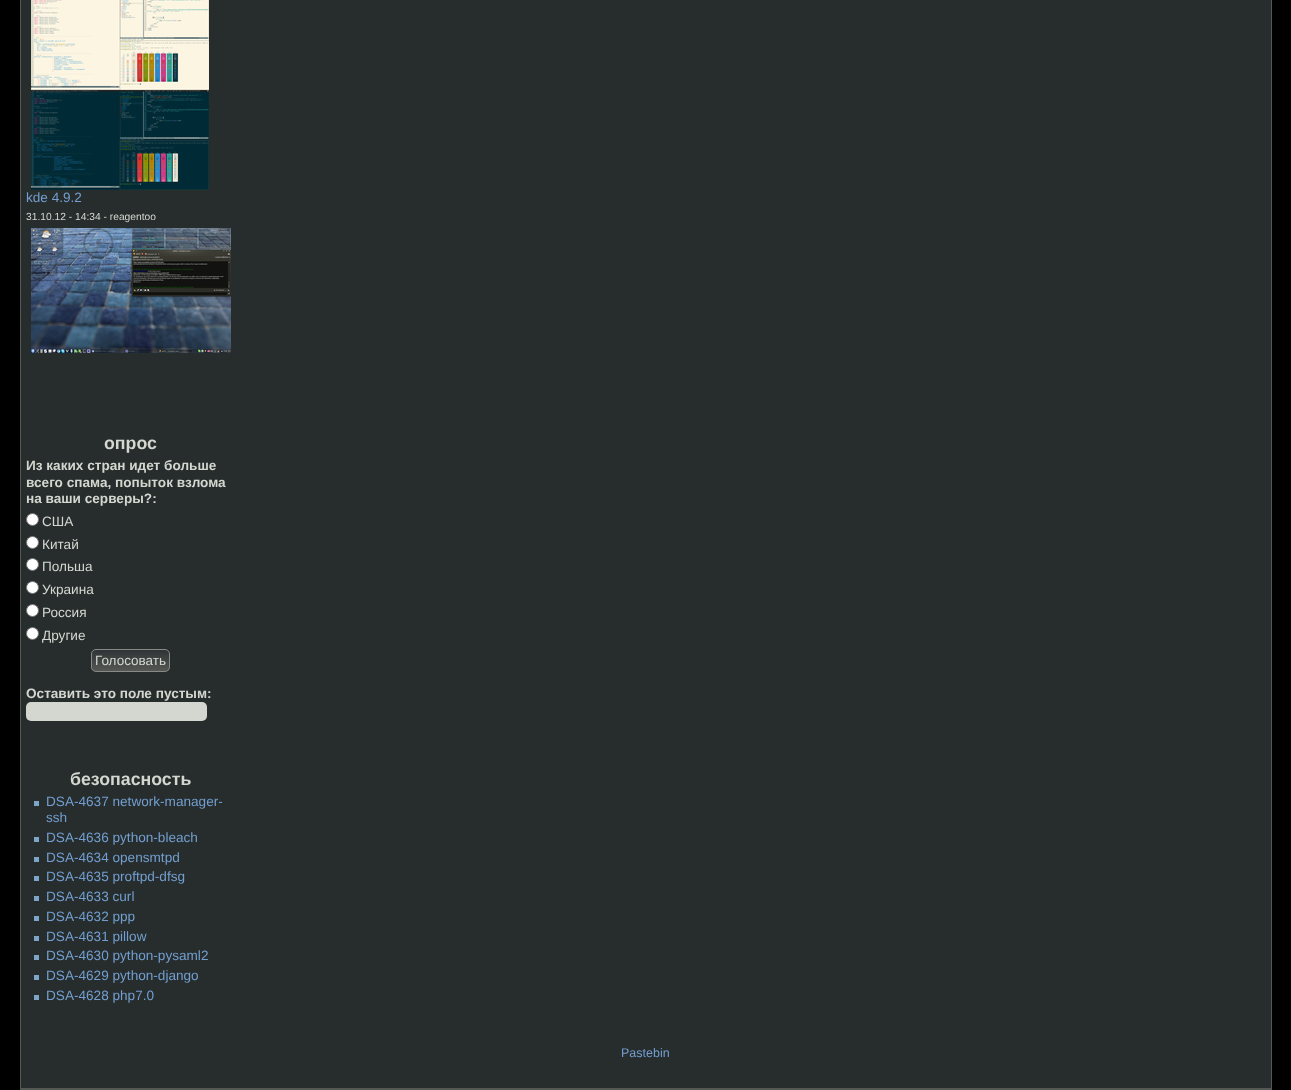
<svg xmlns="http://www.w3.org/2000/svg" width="1291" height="1090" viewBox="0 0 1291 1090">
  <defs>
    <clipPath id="clip1"><rect x="91" y="649" width="79" height="23" rx="5"/></clipPath>
    <linearGradient id="g1" gradientUnits="userSpaceOnUse" x1="131" y1="650" x2="131" y2="671"><stop offset="0" stop-color="rgb(46,52,54)"/><stop offset="1" stop-color="rgb(85,87,83)"/></linearGradient>
  </defs>
  <rect width="100%" height="100%" fill="rgb(0,0,0)"/>
  <rect x="20.5" y="-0.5" width="1251" height="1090" fill="none" stroke="rgb(85,87,83)"/>
  <rect x="21" y="0" width="1250" height="1088" fill="rgb(39,44,45)"/>
  <image x="31" y="0" width="178" height="190" href="pic1.png"/>
  <text x="26" y="202" font-family="Liberation Sans" font-size="13.6" fill="rgb(114,159,207)">kde 4.9.2</text>
  <text x="26" y="220" font-family="Liberation Sans" font-size="10.25" fill="rgb(211,215,207)">31.10.12 - 14:34 - reagentoo</text>
  <image x="31" y="228" width="200" height="125" href="pic2.png"/>
  <text x="104" y="449" font-family="Liberation Sans" font-size="17.75" font-weight="bold" fill="rgb(211,215,207)">опрос</text>
  <g font-family="Liberation Sans" font-size="13.6" font-weight="bold" fill="rgb(211,215,207)">
    <text>
      <tspan x="26" y="470">Из каких стран идет больше</tspan>
      <tspan x="26" y="487">всего спама, попыток взлома</tspan>
      <tspan x="26" y="503">на ваши серверы?:</tspan>
    </text>
  </g>
  <circle cx="32.5" cy="519.5" r="6" fill="rgb(255,255,255)" stroke="rgb(118,118,118)"/>
  <text x="42" y="526" font-family="Liberation Sans" font-size="13.6" fill="rgb(211,215,207)">США</text>
  <circle cx="32.5" cy="542.5" r="6" fill="rgb(255,255,255)" stroke="rgb(118,118,118)"/>
  <text x="42" y="549" font-family="Liberation Sans" font-size="13.6" fill="rgb(211,215,207)">Китай</text>
  <circle cx="32.5" cy="564.5" r="6" fill="rgb(255,255,255)" stroke="rgb(118,118,118)"/>
  <text x="42" y="571" font-family="Liberation Sans" font-size="13.6" fill="rgb(211,215,207)">Польша</text>
  <circle cx="32.5" cy="587.5" r="6" fill="rgb(255,255,255)" stroke="rgb(118,118,118)"/>
  <text x="42" y="594" font-family="Liberation Sans" font-size="13.6" fill="rgb(211,215,207)">Украина</text>
  <circle cx="32.5" cy="610.5" r="6" fill="rgb(255,255,255)" stroke="rgb(118,118,118)"/>
  <text x="42" y="617" font-family="Liberation Sans" font-size="13.6" fill="rgb(211,215,207)">Россия</text>
  <circle cx="32.5" cy="633.5" r="6" fill="rgb(255,255,255)" stroke="rgb(118,118,118)"/>
  <text x="42" y="640" font-family="Liberation Sans" font-size="13.6" fill="rgb(211,215,207)">Другие</text>
  <g clip-path="url(#clip1)">
    <rect x="91" y="650" width="79" height="21" fill="url(#g1)"/>
  </g>
  <rect x="91.5" y="649.5" width="78" height="22" rx="4.5" fill="none" stroke="rgb(136,138,133)"/>
  <text x="95" y="665" font-family="Liberation Sans" font-size="13.5" fill="rgb(211,215,207)">Голосовать</text>
  <text x="26" y="698" font-family="Liberation Sans" font-size="13.6" font-weight="bold" fill="rgb(211,215,207)">Оставить это поле пустым:</text>
  <rect x="26" y="702" width="181" height="19" rx="5" fill="rgb(211,215,207)"/>
  <text x="70" y="785" font-family="Liberation Sans" font-size="17.75" font-weight="bold" fill="rgb(211,215,207)">безопасность</text>
  <rect x="34" y="801" width="5" height="5" fill="rgb(125,165,201)"/>
  <g font-family="Liberation Sans" font-size="13.6" fill="rgb(114,159,207)">
    <text>
      <tspan x="46" y="806">DSA-4637 network-manager-</tspan>
      <tspan x="46" y="822">ssh</tspan>
    </text>
  </g>
  <rect x="34" y="837" width="5" height="5" fill="rgb(125,165,201)"/>
  <text x="46" y="842" font-family="Liberation Sans" font-size="13.6" fill="rgb(114,159,207)">DSA-4636 python-bleach</text>
  <rect x="34" y="857" width="5" height="5" fill="rgb(125,165,201)"/>
  <text x="46" y="862" font-family="Liberation Sans" font-size="13.6" fill="rgb(114,159,207)">DSA-4634 opensmtpd</text>
  <rect x="34" y="876" width="5" height="5" fill="rgb(125,165,201)"/>
  <text x="46" y="881" font-family="Liberation Sans" font-size="13.6" fill="rgb(114,159,207)">DSA-4635 proftpd-dfsg</text>
  <rect x="34" y="896" width="5" height="5" fill="rgb(125,165,201)"/>
  <text x="46" y="901" font-family="Liberation Sans" font-size="13.6" fill="rgb(114,159,207)">DSA-4633 curl</text>
  <rect x="34" y="916" width="5" height="5" fill="rgb(125,165,201)"/>
  <text x="46" y="921" font-family="Liberation Sans" font-size="13.6" fill="rgb(114,159,207)">DSA-4632 ppp</text>
  <rect x="34" y="936" width="5" height="5" fill="rgb(125,165,201)"/>
  <text x="46" y="941" font-family="Liberation Sans" font-size="13.6" fill="rgb(114,159,207)">DSA-4631 pillow</text>
  <rect x="34" y="955" width="5" height="5" fill="rgb(125,165,201)"/>
  <text x="46" y="960" font-family="Liberation Sans" font-size="13.6" fill="rgb(114,159,207)">DSA-4630 python-pysaml2</text>
  <rect x="34" y="975" width="5" height="5" fill="rgb(125,165,201)"/>
  <text x="46" y="980" font-family="Liberation Sans" font-size="13.6" fill="rgb(114,159,207)">DSA-4629 python-django</text>
  <rect x="34" y="995" width="5" height="5" fill="rgb(125,165,201)"/>
  <text x="46" y="1000" font-family="Liberation Sans" font-size="13.6" fill="rgb(114,159,207)">DSA-4628 php7.0</text>
  <rect x="21" y="1088" width="1250" height="1" fill="rgb(85,87,83)"/>
  <text x="621" y="1057" font-family="Liberation Sans" font-size="12.5" fill="rgb(114,159,207)">Pastebin</text>
</svg>
